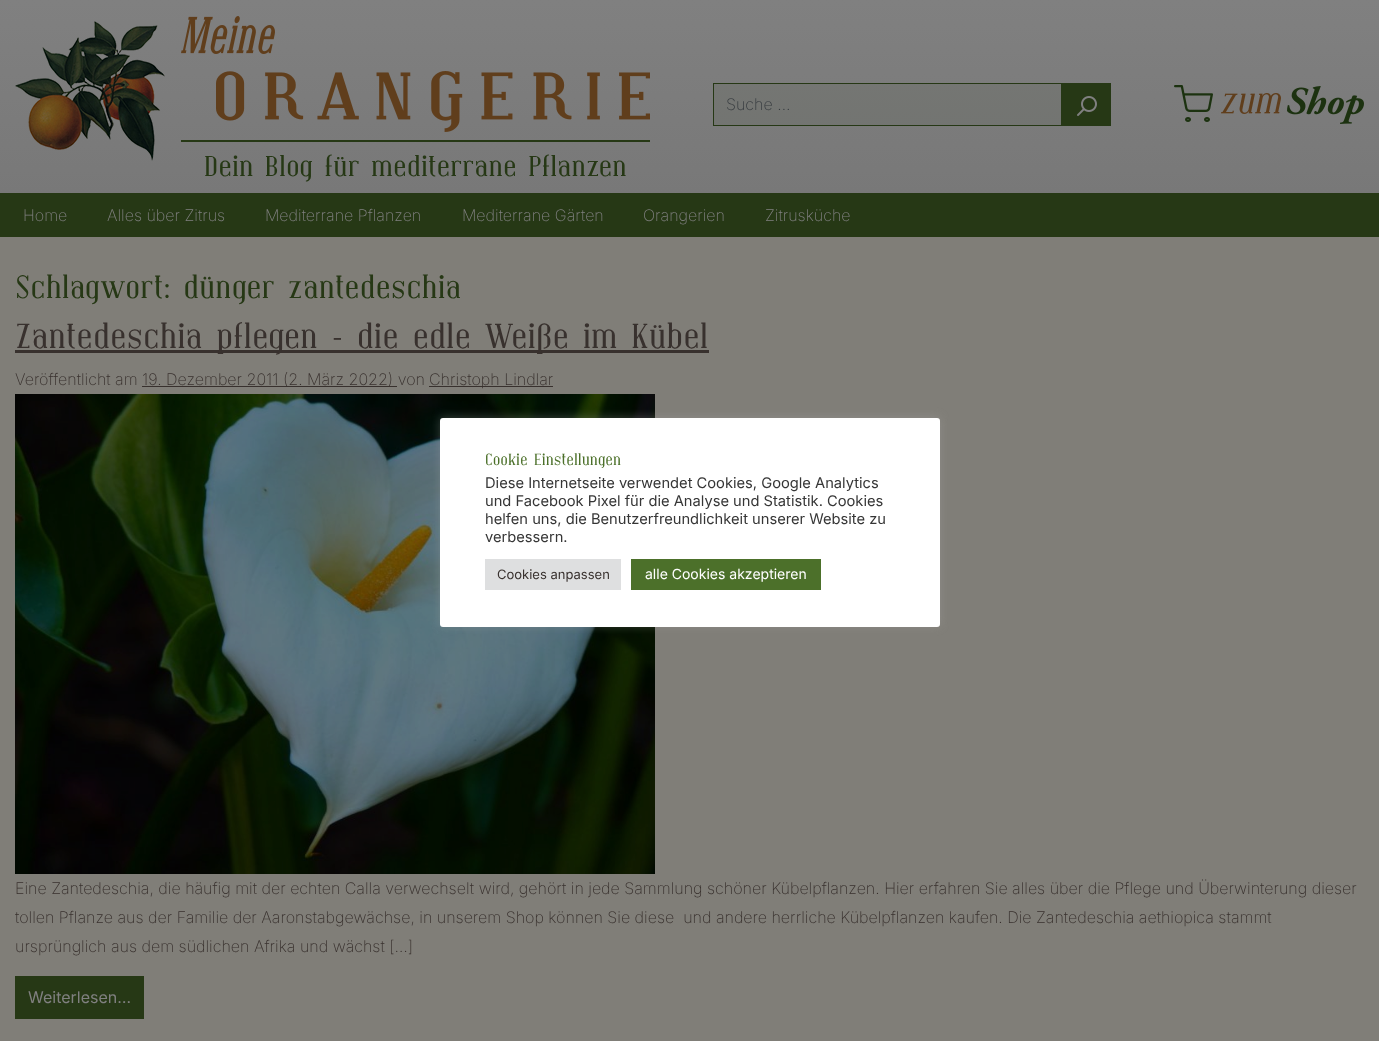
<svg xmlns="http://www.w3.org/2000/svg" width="1379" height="1041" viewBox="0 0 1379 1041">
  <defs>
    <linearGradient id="g1" gradientUnits="userSpaceOnUse" x1="690" y1="0" x2="690" y2="193"><stop offset="0" stop-color="rgb(128,128,128)"/><stop offset="1" stop-color="rgb(120,120,120)"/></linearGradient>
    <linearGradient id="g2" gradientUnits="userSpaceOnUse" x1="690" y1="0" x2="690" y2="193"><stop offset="0" stop-color="rgb(120,121,118)"/><stop offset="1" stop-color="rgb(112,114,111)"/></linearGradient>
  </defs>
  <rect width="100%" height="100%" fill="rgb(128,126,120)"/>
  <rect x="0" y="0" width="1379" height="193" fill="url(#g1)"/>
  <rect x="714" y="84" width="347" height="41" fill="url(#g2)"/>
  <rect x="713.5" y="83.5" width="348" height="42" fill="none" stroke="rgb(38,56,21)"/>
  <text x="726" y="110" font-family="Inter" font-size="16" font-weight="200" fill="rgb(54,59,63)">Suche …</text>
  <rect x="1062" y="83" width="49" height="43" fill="rgb(38,56,21)"/>
  <image x="1077" y="96" width="20" height="20" href="pic1.png"/>
  <image x="1174" y="85" width="190" height="39" href="pic2.png"/>
  <image x="15" y="21" width="150" height="140" href="pic3.png"/>
  <image x="181" y="16" width="469" height="116" href="pic4.png"/>
  <rect x="181" y="140" width="469" height="2" fill="rgb(38,56,21)"/>
  <text x="204" y="176" font-family="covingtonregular" font-size="28.75" fill="rgb(38,56,21)">Dein Blog für mediterrane Pflanzen</text>
  <rect x="0" y="193" width="1379" height="44" fill="rgb(38,56,21)"/>
  <g font-family="Inter" font-size="16" font-weight="200" fill="rgb(128,128,128)">
    <text x="23" y="221">Home</text>
    <text x="107" y="221">Alles über Zitrus</text>
    <text x="265" y="221">Mediterrane Pflanzen</text>
    <text x="462" y="221">Mediterrane Gärten</text>
    <text x="643" y="221">Orangerien</text>
    <text x="765" y="221">Zitrusküche</text>
  </g>
  <text x="15" y="298" font-family="covingtonregular" font-size="32" fill="rgb(38,56,21)">Schlagwort: dünger zantedeschia</text>
  <rect x="15" y="350" width="694" height="3" fill="rgb(56,49,46)"/>
  <text x="15" y="348" font-family="covingtonregular" font-size="34.6" fill="rgb(56,49,46)">Zantedeschia pflegen – die edle Weiße im Kübel</text>
  <text x="15" y="385" font-family="Inter" font-size="16" font-weight="200" fill="rgb(56,49,46)">Veröffentlicht am 19. Dezember 2011</text>
  <rect x="142" y="386" width="255" height="1" fill="rgb(56,49,46)"/>
  <text x="283" y="385" font-family="Inter" font-size="16" font-weight="200" fill="rgb(56,49,46)">(2. März 2022) von</text>
  <rect x="429" y="386" width="124" height="1" fill="rgb(56,49,46)"/>
  <text x="429" y="385" font-family="Inter" font-size="16" font-weight="200" fill="rgb(56,49,46)">Christoph Lindlar</text>
  <image x="15" y="394" width="640" height="480" href="pic5.png"/>
  <g font-family="Inter" font-size="16" font-weight="200" fill="rgb(56,49,46)">
    <text xml:space="preserve"><tspan x="15" y="894">Eine Zantedeschia, die häufig mit der echten Calla verwechselt wird, gehört in jede Sammlung schöner Kübelpflanzen. Hier erfahren Sie alles über die Pflege und Überwinterung dieser</tspan><tspan x="15" y="923">tollen Pflanze aus der Familie der Aaronstabgewächse, in unserem Shop können Sie diese  und andere herrliche Kübelpflanzen kaufen. Die Zantedeschia aethiopica stammt</tspan><tspan x="15" y="952">ursprünglich aus dem südlichen Afrika und wächst […]</tspan></text>
  </g>
  <rect x="15" y="976" width="129" height="43" fill="rgb(38,56,21)"/>
  <text x="28" y="1003" font-family="Inter" font-size="16" fill="rgb(128,128,128)">Weiterlesen…</text>
  <rect x="440" y="417" width="500" height="209" rx="3" fill="rgba(172,171,171,0.3)" filter="blur(5px)"/>
  <rect x="440" y="418" width="500" height="209" rx="3" fill="rgb(255,255,255)"/>
  <text x="485" y="465" font-family="covingtonregular" font-size="16" fill="rgb(76,112,42)">Cookie Einstellungen</text>
  <g font-family="Inter" font-size="14.7" fill="rgb(54,54,54)">
    <text>
      <tspan x="485" y="488">Diese Internetseite verwendet Cookies, Google Analytics</tspan>
      <tspan x="485" y="506">und Facebook Pixel für die Analyse und Statistik. Cookies</tspan>
      <tspan x="485" y="524">helfen uns, die Benutzerfreundlichkeit unserer Website zu</tspan>
      <tspan x="485" y="542">verbessern.</tspan>
    </text>
  </g>
  <rect x="485" y="559" width="136" height="31" fill="rgb(222,223,224)"/>
  <text x="497" y="579" font-family="Inter" font-size="13" fill="rgb(56,49,46)">Cookies anpassen</text>
  <rect x="631" y="559" width="190" height="31" fill="rgb(76,112,42)"/>
  <text x="645" y="579" font-family="Inter" font-size="14" fill="rgb(255,255,255)">alle Cookies akzeptieren</text>
</svg>
